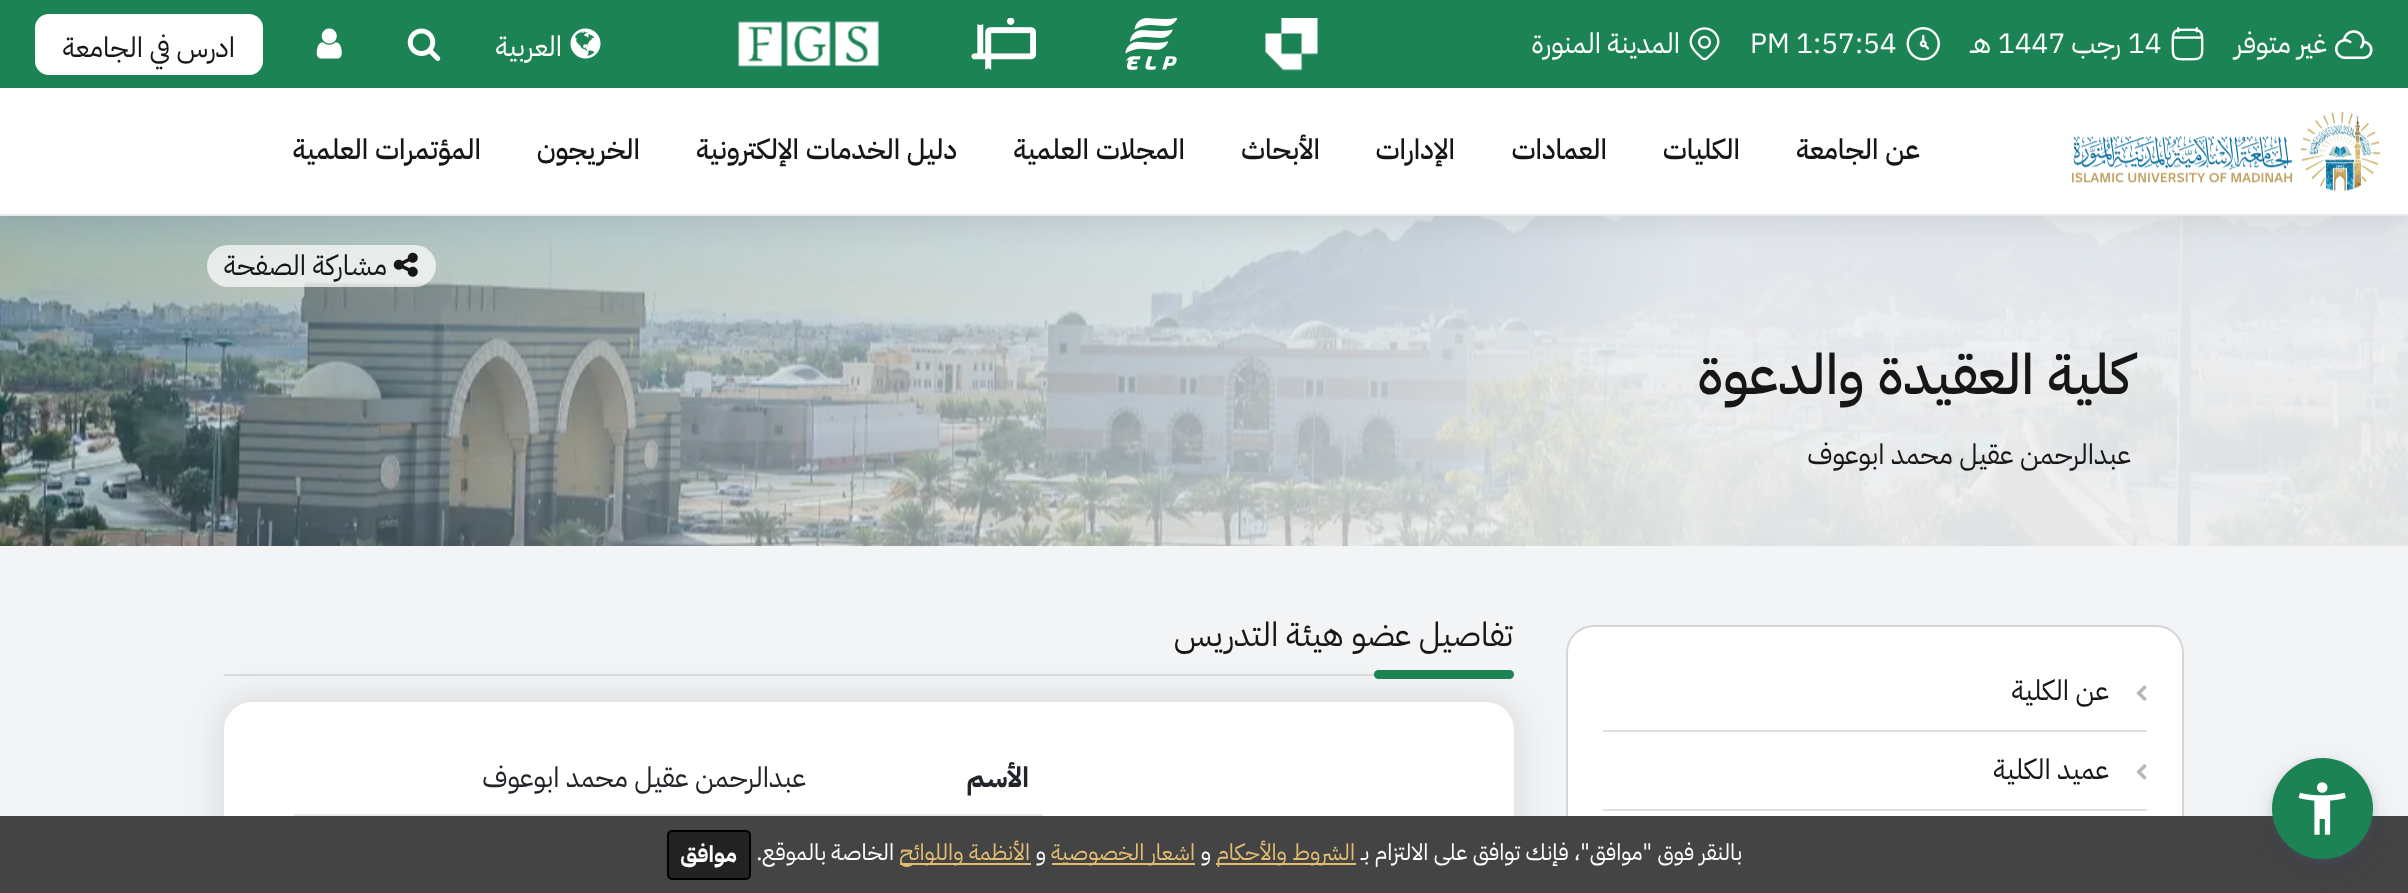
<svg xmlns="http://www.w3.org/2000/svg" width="2408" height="893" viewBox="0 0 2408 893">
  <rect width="100%" height="100%" fill="rgb(243,244,246)"/>
  <image x="0" y="216" width="2408" height="330" href="pic13.png"/>
  <rect x="207" y="245" width="229" height="42" rx="21" fill="rgba(255,255,255,0.7)"/>
  <image x="393" y="252" width="25" height="25" href="pic14.png"/>
  <rect x="-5" y="82" width="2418" height="139" fill="rgba(0,0,0,0.1)" filter="blur(17.5px)"/>
  <rect x="0" y="0" width="2408" height="88" fill="rgb(27,131,84)"/>
  <image x="2335" y="30" width="38" height="30" href="pic1.png"/>
  <text x="2327" y="53" font-family="IBM Plex Sans Arabic" font-size="28" direction="rtl" fill="rgb(255,255,255)">غير متوفر</text>
  <image x="2171" y="27" width="33" height="34" href="pic2.png"/>
  <text x="2128" y="53" font-family="IBM Plex Sans Arabic" font-size="28" fill="rgb(255,255,255)">14</text>
  <text x="2121" y="53" font-family="IBM Plex Sans Arabic" font-size="28" direction="rtl" fill="rgb(255,255,255)">رجب</text>
  <text x="1998" y="53" font-family="IBM Plex Sans Arabic" font-size="28" fill="rgb(255,255,255)">1447</text>
  <text x="1991" y="53" font-family="IBM Plex Sans Arabic" font-size="28" direction="rtl" fill="rgb(255,255,255)">هـ</text>
  <image x="1906" y="27" width="34" height="34" href="pic3.png"/>
  <text x="1750" y="53" font-family="IBM Plex Sans Arabic" font-size="28" fill="rgb(255,255,255)">PM 1:57:54</text>
  <image x="1689" y="27" width="31" height="34" href="pic4.png"/>
  <text x="1680" y="53" font-family="IBM Plex Sans Arabic" font-size="28" direction="rtl" fill="rgb(255,255,255)">المدينة المنورة</text>
  <image x="1265" y="18" width="53" height="53" href="pic5.png"/>
  <image x="1125" y="18" width="53" height="52" href="pic6.png"/>
  <image x="971" y="18" width="65" height="52" href="pic7.png"/>
  <image x="738" y="21" width="141" height="46" href="pic8.png"/>
  <image x="570" y="28" width="31" height="31" href="pic9.png"/>
  <text x="562" y="56" font-family="IBM Plex Sans Arabic" font-size="28" direction="rtl" fill="rgb(255,255,255)">العربية</text>
  <image x="407" y="28" width="34" height="33" href="pic10.png"/>
  <image x="316" y="28" width="26" height="31" href="pic11.png"/>
  <rect x="35" y="14" width="228" height="61" rx="14" fill="rgb(255,255,255)"/>
  <text x="235" y="57" font-family="IBM Plex Sans Arabic" font-size="28" direction="rtl" fill="rgb(22,22,22)">ادرس في الجامعة</text>
  <rect x="0" y="88" width="2408" height="126" fill="rgb(255,255,255)"/>
  <rect x="9" y="214" width="2390" height="2" fill="rgb(231,234,236)"/>
  <image x="2072" y="112" width="308" height="80" href="pic12.png"/>
  <g font-family="IBM Plex Sans Arabic" font-size="28" font-weight="500" direction="rtl" fill="rgb(22,22,22)">
    <text x="1920" y="159">عن الجامعة</text>
    <text x="1740" y="159">الكليات</text>
    <text x="1607" y="159">العمادات</text>
    <text x="1455" y="159">الإدارات</text>
    <text x="1320" y="159">الأبحاث</text>
    <text x="1185" y="159">المجلات العلمية</text>
    <text x="957" y="159">دليل الخدمات الإلكترونية</text>
    <text x="640" y="159">الخريجون</text>
    <text x="481" y="159">المؤتمرات العلمية</text>
  </g>
  <text x="387" y="275" font-family="IBM Plex Sans Arabic" font-size="28" direction="rtl" fill="rgb(22,22,22)">مشاركة الصفحة</text>
  <text x="2131" y="394" font-family="IBM Plex Sans Arabic" font-size="56" font-weight="500" direction="rtl" fill="rgb(22,22,22)">كلية العقيدة والدعوة</text>
  <text x="2131" y="464" font-family="IBM Plex Sans Arabic" font-size="28" direction="rtl" fill="rgb(22,22,22)">عبدالرحمن عقيل محمد ابوعوف</text>
  <rect x="1567" y="626" width="616" height="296" rx="27" fill="rgb(255,255,255)" stroke="rgb(210,214,219)" stroke-width="2"/>
  <image x="2136" y="685" width="11" height="16" href="pic15.png"/>
  <rect x="1603" y="730" width="544" height="2" fill="rgb(222,223,223)"/>
  <text x="2109" y="700" font-family="IBM Plex Sans Arabic" font-size="28" direction="rtl" fill="rgb(22,22,22)">عن الكلية</text>
  <image x="2136" y="764" width="11" height="16" href="pic16.png"/>
  <rect x="1603" y="809" width="544" height="2" fill="rgb(222,223,223)"/>
  <text x="2109" y="779" font-family="IBM Plex Sans Arabic" font-size="28" direction="rtl" fill="rgb(22,22,22)">عميد الكلية</text>
  <rect x="219" y="697" width="1300" height="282" rx="33" fill="rgba(0,0,0,0.1)" filter="blur(17.5px)"/>
  <rect x="224" y="674" width="1290" height="2" fill="rgb(216,217,219)"/>
  <text x="1513" y="646" font-family="IBM Plex Sans Arabic" font-size="33.25" direction="rtl" fill="rgb(22,22,22)">تفاصيل عضو هيئة التدريس</text>
  <rect x="1374" y="670" width="140" height="9" rx="4.5" fill="rgb(27,131,84)"/>
  <rect x="224" y="702" width="1290" height="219" rx="28" fill="rgb(255,255,255)"/>
  <text x="1029" y="787" font-family="IBM Plex Sans Arabic" font-size="28" font-weight="bold" direction="rtl" fill="rgb(33,37,41)">الأسم</text>
  <text x="806" y="787" font-family="IBM Plex Sans Arabic" font-size="28" direction="rtl" fill="rgb(33,37,41)">عبدالرحمن عقيل محمد ابوعوف</text>
  <rect x="294" y="814" width="749" height="2" fill="rgb(231,234,236)"/>
  <rect x="0" y="816" width="2408" height="77" fill="rgb(68,68,68)"/>
  <rect x="2272" y="761" width="101" height="102" rx="50.5" fill="rgba(93,100,148,0.2)" filter="blur(3.5px)"/>
  <rect x="2272" y="767" width="101" height="101" rx="50.5" fill="rgba(37,44,97,0.15)" filter="blur(13px)"/>
  <circle cx="2322.5" cy="808.5" r="50.5" fill="rgb(27,131,84)"/>
  <image x="2298" y="782" width="48" height="53" href="pic17.png"/>
  <text x="1742" y="860" font-family="IBM Plex Sans Arabic" font-size="22.75" direction="rtl" fill="rgb(255,255,255)">بالنقر فوق "موافق"، فإنك توافق على الالتزام بـ</text>
  <rect x="1216" y="863" width="140" height="2" fill="rgb(226,189,114)"/>
  <text x="1355" y="860" font-family="IBM Plex Sans Arabic" font-size="22.75" direction="rtl" fill="rgb(226,189,114)">الشروط والأحكام</text>
  <text x="1211" y="860" font-family="IBM Plex Sans Arabic" font-size="22.75" direction="rtl" fill="rgb(255,255,255)">و</text>
  <rect x="1052" y="863" width="143" height="2" fill="rgb(226,189,114)"/>
  <text x="1195" y="860" font-family="IBM Plex Sans Arabic" font-size="22.75" direction="rtl" fill="rgb(226,189,114)">اشعار الخصوصية</text>
  <text x="1046" y="860" font-family="IBM Plex Sans Arabic" font-size="22.75" direction="rtl" fill="rgb(255,255,255)">و</text>
  <rect x="900" y="863" width="131" height="2" fill="rgb(226,189,114)"/>
  <text x="1030" y="860" font-family="IBM Plex Sans Arabic" font-size="22.75" direction="rtl" fill="rgb(226,189,114)">الأنظمة واللوائح</text>
  <text x="894" y="860" font-family="IBM Plex Sans Arabic" font-size="22.75" direction="rtl" fill="rgb(255,255,255)">الخاصة بالموقع.</text>
  <rect x="668" y="831" width="82" height="48" rx="4" fill="rgb(34,34,34)" stroke="rgb(0,0,0)" stroke-width="2"/>
  <text x="737" y="862" font-family="IBM Plex Sans Arabic" font-size="22.75" font-weight="bold" direction="rtl" fill="rgb(255,255,255)">موافق</text>
</svg>
